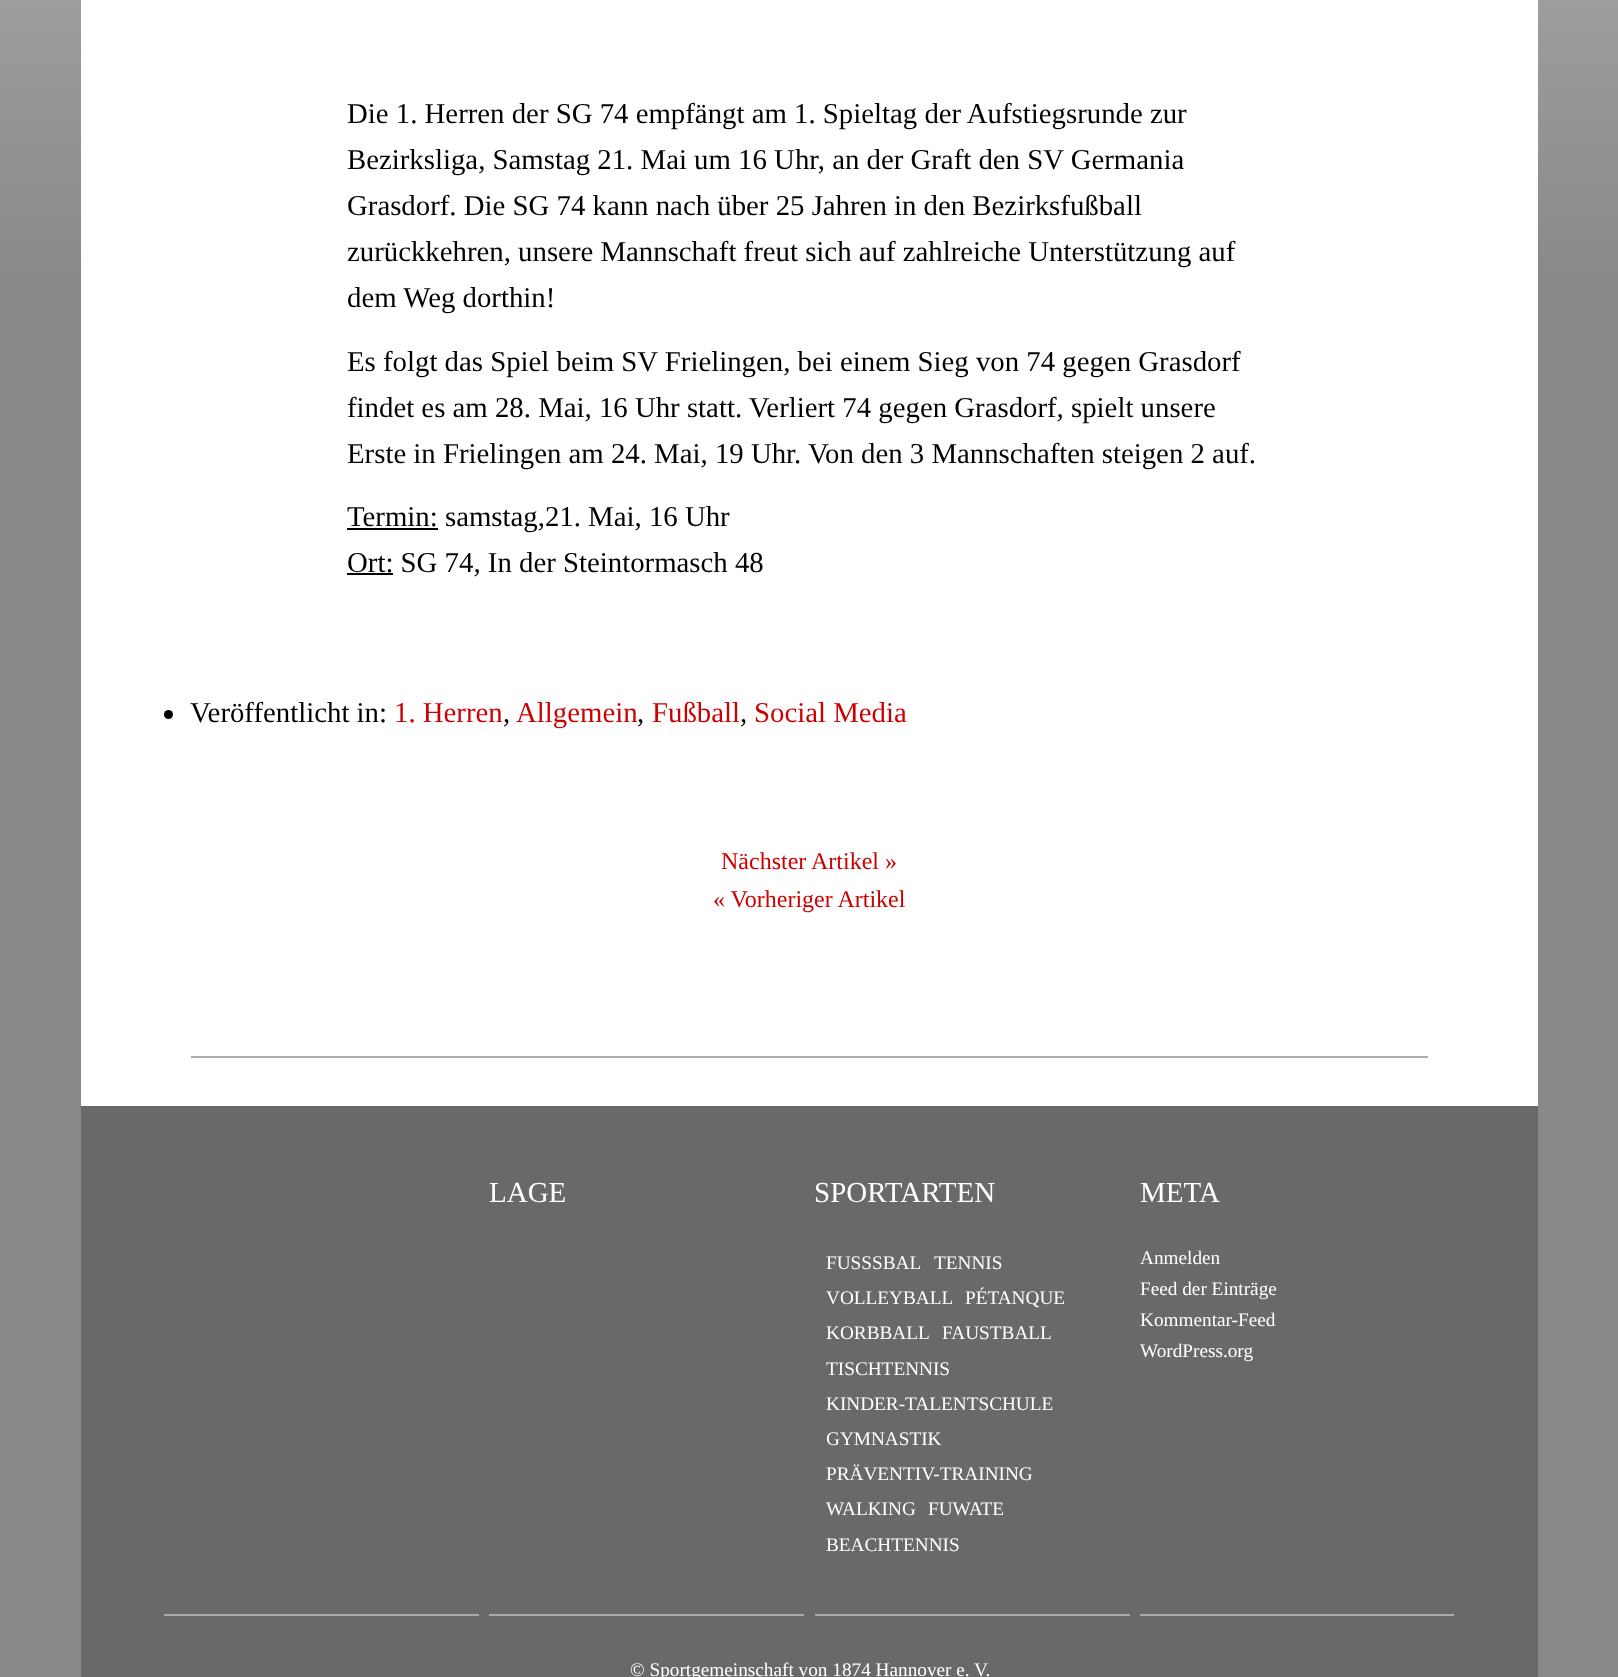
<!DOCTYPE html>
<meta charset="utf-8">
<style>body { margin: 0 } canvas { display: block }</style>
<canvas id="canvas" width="1618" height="1677"></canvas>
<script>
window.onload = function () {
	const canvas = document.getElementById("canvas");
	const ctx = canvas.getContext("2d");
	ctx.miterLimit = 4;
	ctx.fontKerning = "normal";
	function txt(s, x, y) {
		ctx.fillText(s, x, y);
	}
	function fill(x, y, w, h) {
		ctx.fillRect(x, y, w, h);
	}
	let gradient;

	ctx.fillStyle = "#FFFFFF";
	fill(0, 0, 1618, 1677);
	gradient = ctx.createLinearGradient(809, -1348, 809, 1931);
	gradient.addColorStop(0, "#FFFFFF");
	gradient.addColorStop(0.5, "#888888");
	ctx.fillStyle = gradient;
	fill(0, 0, 1618, 1677);
	ctx.fillStyle = "#FFFFFF";
	fill(81, 0, 1457, 1106);
	ctx.fillStyle = "#000000";
	fill(347, 528, 91, 2);
	fill(347, 573, 46, 2);
	ctx.beginPath();
	ctx.arc(168.5, 714.5, 4.5, 0, Math.PI * 2);
	ctx.fill();
	ctx.fillStyle = "#AAAAAA";
	fill(191, 1056, 1237, 2);
	ctx.fillStyle = "#696969";
	fill(81, 1106, 1457, 571);
	ctx.fillStyle = "#AAAAAA";
	fill(489, 1614, 315, 2);
	fill(815, 1614, 315, 2);
	fill(1140, 1614, 314, 2);
	fill(164, 1614, 315, 2);
	ctx.font = "28.8px Liberation Serif";
	ctx.fillStyle = "#000000";
	txt("Die 1. Herren der SG 74 empfängt am 1. Spieltag der Aufstiegsrunde zur", 347, 123);
	txt("Bezirksliga, Samstag 21. Mai um 16 Uhr, an der Graft den SV Germania", 347, 169);
	txt("Grasdorf. Die SG 74 kann nach über 25 Jahren in den Bezirksfußball", 347, 215);
	txt("zurückkehren, unsere Mannschaft freut sich auf zahlreiche Unterstützung auf", 347, 261);
	txt("dem Weg dorthin!", 347, 307);
	txt("Es folgt das Spiel beim SV Frielingen, bei einem Sieg von 74 gegen Grasdorf", 347, 371);
	txt("findet es am 28. Mai, 16 Uhr statt. Verliert 74 gegen Grasdorf, spielt unsere", 347, 417);
	txt("Erste in Frielingen am 24. Mai, 19 Uhr. Von den 3 Mannschaften steigen 2 auf.", 347, 463);
	txt("Termin: samstag,21. Mai, 16 Uhr", 347, 526);
	txt("Ort: SG 74, In der Steintormasch 48", 347, 572);
	txt("Veröffentlicht in:", 190, 722);
	ctx.fillStyle = "#CC0000";
	txt("1. Herren", 394, 722);
	txt("Allgemein", 516, 722);
	txt("Fußball", 652, 722);
	txt("Social Media", 754, 722);
	ctx.fillStyle = "#000000";
	txt(",", 503, 722);
	txt(",", 637, 722);
	txt(",", 740, 722);
	ctx.font = "24px Liberation Serif";
	ctx.fillStyle = "#CC0000";
	txt("Nächster Artikel »", 721, 869);
	txt("« Vorheriger Artikel", 713, 907);
	ctx.font = "29px Liberation Serif";
	ctx.fillStyle = "#FFFFFF";
	txt("LAGE", 489, 1202);
	txt("SPORTARTEN", 814, 1202);
	ctx.font = "19.25px Liberation Serif";
	txt("FUSSSBAL", 826, 1269);
	txt("TENNIS", 934, 1269);
	txt("VOLLEYBALL", 826, 1304);
	txt("PÉTANQUE", 965, 1304);
	txt("KORBBALL", 826, 1339);
	txt("FAUSTBALL", 942, 1339);
	txt("TISCHTENNIS", 826, 1375);
	txt("KINDER-TALENTSCHULE", 826, 1410);
	txt("GYMNASTIK", 826, 1445);
	txt("PRÄVENTIV-TRAINING", 826, 1480);
	txt("WALKING", 826, 1515);
	txt("FUWATE", 928, 1515);
	txt("BEACHTENNIS", 826, 1551);
	ctx.font = "29px Liberation Serif";
	txt("META", 1140, 1202);
	ctx.font = "19.25px Liberation Serif";
	txt("Anmelden", 1140, 1264);
	txt("Feed der Einträge", 1140, 1295);
	txt("Kommentar-Feed", 1140, 1326);
	txt("WordPress.org", 1140, 1357);
	txt("© Sportgemeinschaft von 1874 Hannover e. V.", 630, 1676);
};
</script>
